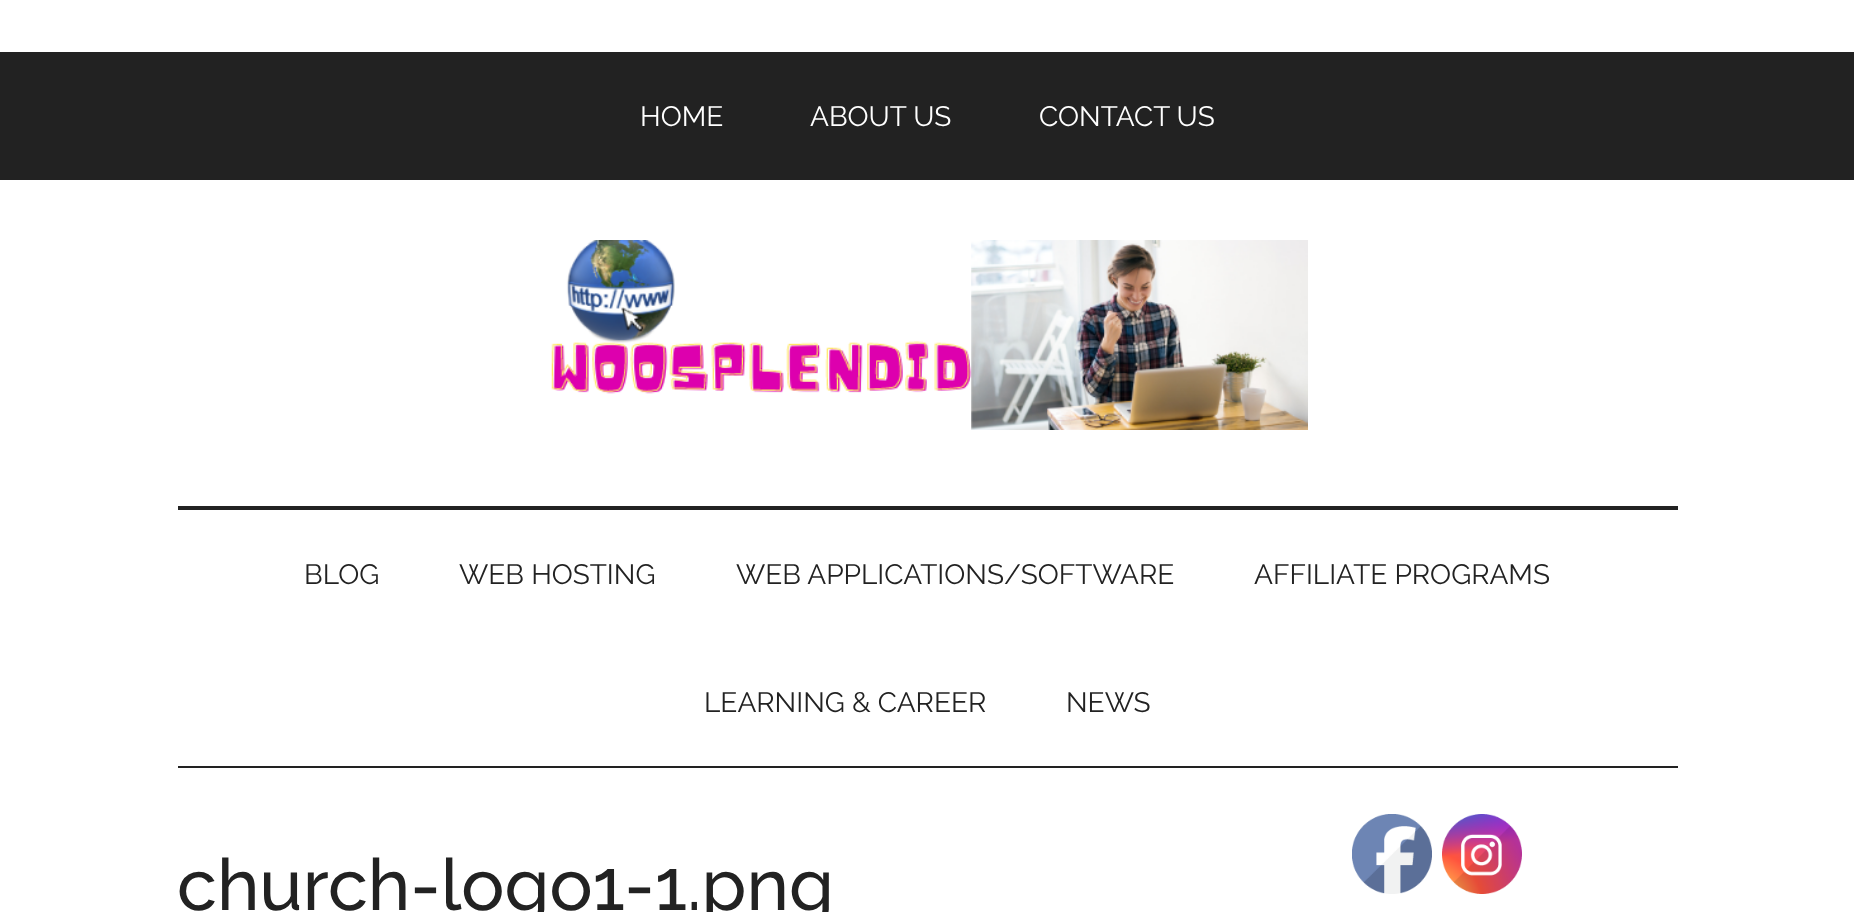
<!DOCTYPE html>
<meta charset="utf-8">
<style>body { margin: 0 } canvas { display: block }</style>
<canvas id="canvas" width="1854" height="912"></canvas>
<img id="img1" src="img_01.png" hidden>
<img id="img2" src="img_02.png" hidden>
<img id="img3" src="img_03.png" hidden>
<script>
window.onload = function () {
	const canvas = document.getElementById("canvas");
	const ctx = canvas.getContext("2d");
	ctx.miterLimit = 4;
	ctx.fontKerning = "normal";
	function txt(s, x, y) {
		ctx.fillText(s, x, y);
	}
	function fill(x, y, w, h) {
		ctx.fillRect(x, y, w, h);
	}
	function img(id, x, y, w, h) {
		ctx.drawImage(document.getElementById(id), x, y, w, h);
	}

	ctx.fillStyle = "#FFFFFF";
	fill(0, 0, 1854, 912);
	ctx.fillStyle = "#222222";
	fill(0, 52, 1854, 128);
	fill(178, 506, 1500, 4);
	img("img1", 551, 240, 757, 190);
	fill(178, 766, 1500, 2);
	img("img2", 1352, 814, 80, 80);
	img("img3", 1442, 814, 80, 80);
	ctx.font = "28px Raleway";
	ctx.fillStyle = "#FFFFFF";
	txt("HOME", 640, 126);
	txt("ABOUT US", 810, 126);
	txt("CONTACT US", 1039, 126);
	ctx.fillStyle = "#222222";
	txt("BLOG", 304, 584);
	txt("WEB HOSTING", 459, 584);
	txt("WEB APPLICATIONS/SOFTWARE", 736, 584);
	txt("AFFILIATE PROGRAMS", 1254, 584);
	txt("LEARNING & CAREER", 704, 712);
	txt("NEWS", 1066, 712);
	ctx.font = "500 72px Raleway";
	txt("church-logo1-1.png", 177, 910);
};
</script>
